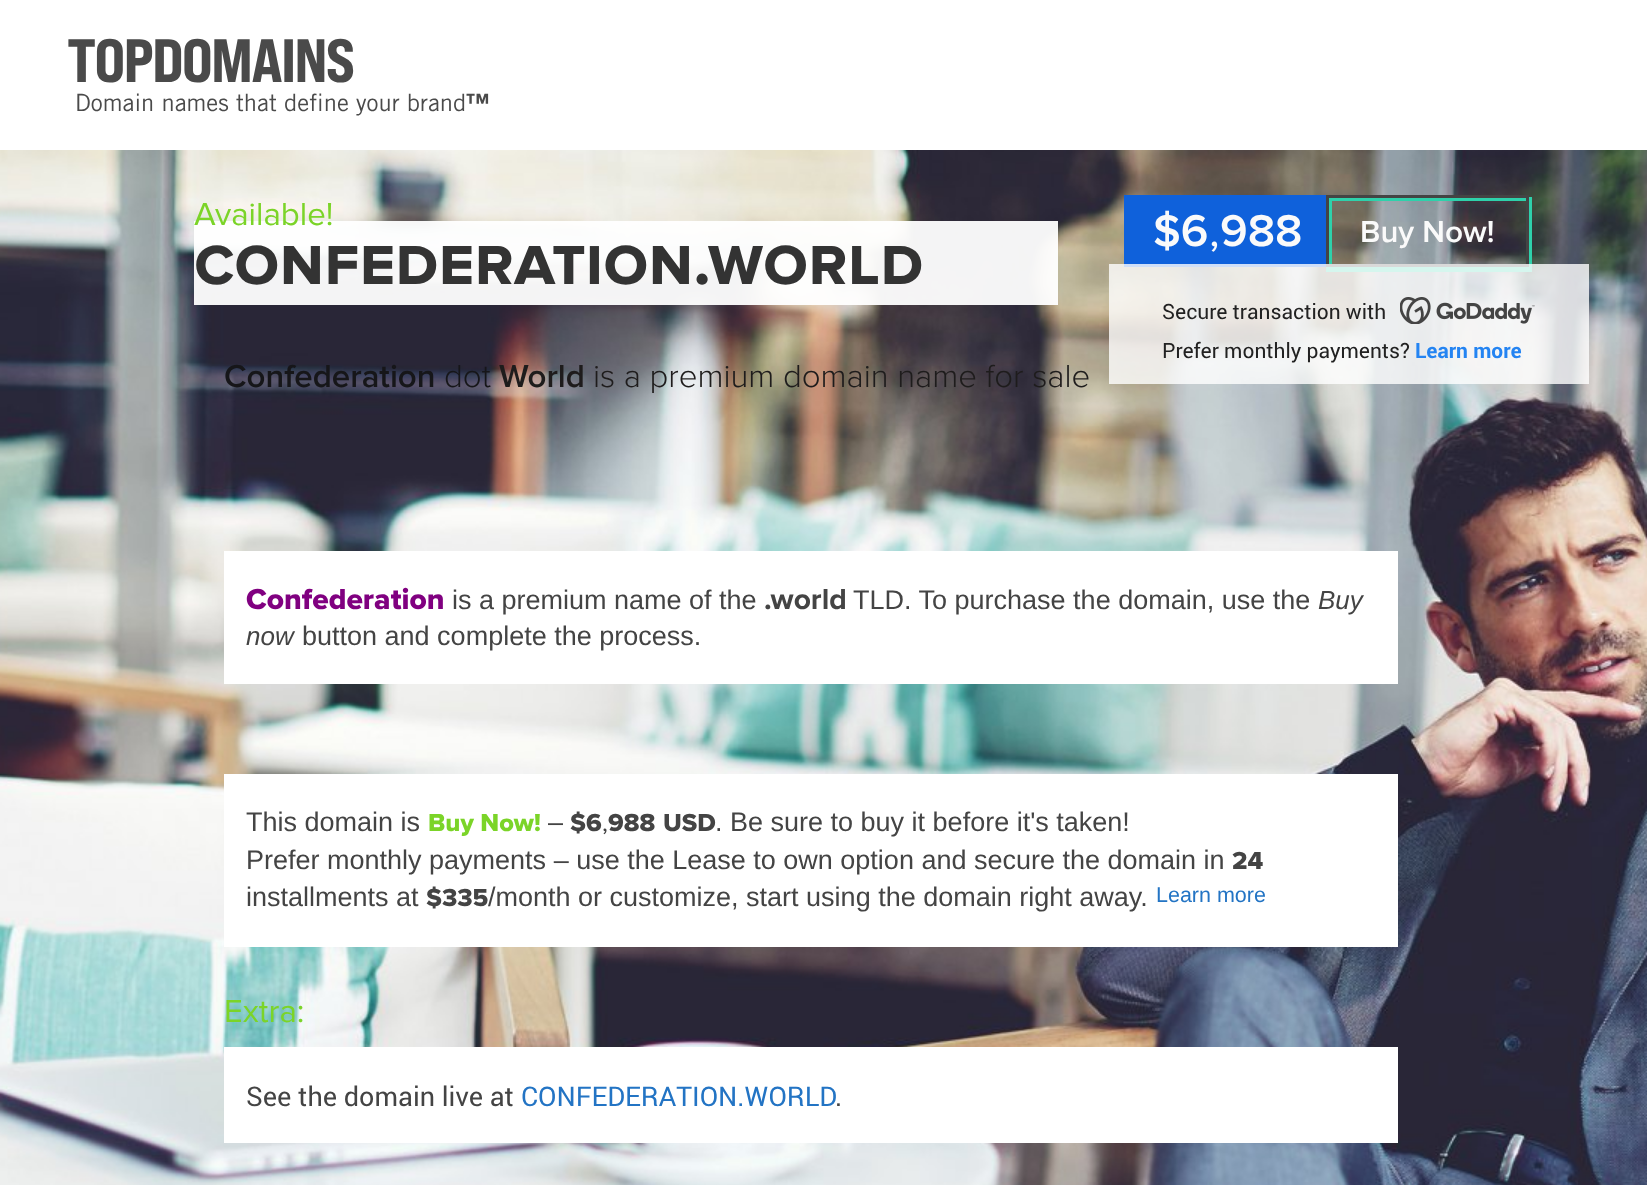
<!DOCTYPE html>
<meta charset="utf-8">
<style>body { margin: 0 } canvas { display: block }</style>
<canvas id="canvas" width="1647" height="1185"></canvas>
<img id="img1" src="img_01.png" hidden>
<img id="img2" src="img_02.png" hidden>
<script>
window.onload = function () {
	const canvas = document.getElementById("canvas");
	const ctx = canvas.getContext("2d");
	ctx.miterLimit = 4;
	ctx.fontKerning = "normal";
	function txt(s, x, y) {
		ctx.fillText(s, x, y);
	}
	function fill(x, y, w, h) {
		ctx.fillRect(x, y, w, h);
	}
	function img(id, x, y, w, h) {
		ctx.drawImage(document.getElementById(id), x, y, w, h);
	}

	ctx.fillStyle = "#FFFFFF";
	fill(0, 0, 1647, 1185);
	img("img1", 0, 150, 1647, 1035);
	ctx.fillStyle = "rgba(255, 255, 255, 0.95)";
	fill(194, 221, 864, 84);
	ctx.fillStyle = "#0F61DB";
	fill(1124, 195, 202, 72);
	ctx.fillStyle = "#2ED1AB";
	ctx.beginPath();
	ctx.moveTo(1326, 267);
	ctx.lineTo(1326, 272);
	ctx.lineTo(1532, 272);
	ctx.lineTo(1532, 197);
	ctx.lineTo(1528, 197);
	ctx.lineTo(1528, 267);
	ctx.closePath();
	ctx.fill();
	ctx.save();
	ctx.beginPath();
	ctx.rect(1329, 198, 197, 66);
	ctx.clip();
	ctx.beginPath();
	ctx.moveTo(1180, 50);
	ctx.lineTo(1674, 50);
	ctx.lineTo(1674, 412);
	ctx.lineTo(1180, 412);
	ctx.closePath();
	ctx.moveTo(1332, 201);
	ctx.lineTo(1526, 201);
	ctx.lineTo(1526, 264);
	ctx.lineTo(1332, 264);
	ctx.closePath();
	ctx.fill("evenodd");
	ctx.restore();
	ctx.strokeStyle = "#444444";
	ctx.lineWidth = 3;
	ctx.strokeRect(1327.5, 196.5, 200, 69);
	ctx.fillStyle = "rgba(255, 255, 255, 0.8)";
	fill(1109, 264, 480, 120);
	img("img2", 1400, 297, 135, 27);
	ctx.fillStyle = "#FFFFFF";
	fill(224, 551, 1174, 133);
	fill(224, 774, 1174, 173);
	fill(224, 1047, 1174, 96);
	ctx.letterSpacing = "-1.9px";
	ctx.font = "800 61px Bebas Neue";
	ctx.fillStyle = "#4A4A4A";
	txt("TOPDOMAINS", 67, 82);
	ctx.letterSpacing = "0px";
	ctx.font = "23.75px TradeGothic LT";
	txt("Domain names that define your brand", 75, 111);
	ctx.font = "bold 23.75px TradeGothic LT";
	txt("™", 466, 111);
	ctx.font = "33px Proxima Nova";
	ctx.fillStyle = "#7BD428";
	txt("Available!", 194, 225);
	ctx.font = "bold 69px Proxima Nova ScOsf";
	ctx.fillStyle = "#333333";
	txt("confederation.", 194, 284);
	txt("world", 708, 284);
	ctx.font = "600 33px Proxima Nova";
	ctx.fillStyle = "#161619";
	txt("Confederation", 224, 387);
	ctx.font = "300 33px Proxima Nova";
	txt("dot", 444, 387);
	ctx.font = "600 33px Proxima Nova";
	ctx.fillStyle = "#1E1C1C";
	txt("World", 499, 387);
	ctx.font = "300 33px Proxima Nova";
	txt("is a premium domain name for sale", 593, 387);
	ctx.font = "600 46px Proxima Nova";
	ctx.fillStyle = "#FAFAFA";
	txt("$6", 1153, 246);
	ctx.font = "46px Proxima Nova";
	txt(",", 1209, 246);
	ctx.font = "600 46px Proxima Nova";
	txt("988", 1220, 246);
	ctx.font = "21px Roboto";
	ctx.fillStyle = "#222222";
	txt("Secure transaction with", 1162, 319);
	txt("Prefer monthly payments?", 1162, 358);
	ctx.font = "bold 21px Roboto";
	ctx.fillStyle = "#2484F2";
	txt("Learn more", 1415, 358);
	ctx.font = "600 31.5px Proxima Nova";
	ctx.fillStyle = "#FAFAFA";
	txt("Buy Now!", 1360, 242);
	ctx.font = "800 30px Proxima Nova";
	ctx.fillStyle = "#800080";
	txt("Confederation", 246, 609);
	ctx.font = "27px Liberation Sans";
	ctx.fillStyle = "#444444";
	txt("is a premium name of the", 452, 609);
	ctx.font = "bold 30px Proxima Nova";
	txt(".world", 764, 609);
	ctx.font = "27px Liberation Sans";
	txt("TLD. To purchase the domain, use the", 853, 609);
	ctx.font = "italic 26px Liberation Sans";
	txt("Buy", 1318, 609);
	txt("now", 246, 645);
	ctx.font = "27px Liberation Sans";
	txt("button and complete the process.", 302, 645);
	txt("This domain is", 246, 831);
	ctx.font = "800 25.5px Proxima Nova";
	ctx.fillStyle = "#7BD428";
	txt("Buy Now!", 428, 831);
	ctx.font = "27px Liberation Sans";
	ctx.fillStyle = "#444444";
	txt("–", 548, 831);
	ctx.font = "800 25.5px Proxima Nova";
	txt("$6", 570, 831);
	txt("988", 608, 831);
	txt("USD", 663, 831);
	ctx.font = "27px Liberation Sans";
	txt(". Be sure to buy it before it's taken!", 715, 831);
	ctx.font = "25.5px Proxima Nova";
	txt(",", 602, 831);
	ctx.font = "27px Liberation Sans";
	txt("Prefer monthly payments – use the Lease to own option and secure the domain in", 246, 869);
	ctx.font = "800 25.5px Proxima Nova";
	txt("24", 1232, 869);
	ctx.font = "27px Liberation Sans";
	txt("installments at", 246, 906);
	ctx.font = "800 25.5px Proxima Nova";
	txt("$335", 426, 906);
	ctx.font = "27px Liberation Sans";
	txt("/month or customize, start using the domain right away.", 488, 906);
	ctx.font = "21.5px Liberation Sans";
	ctx.fillStyle = "#2374C4";
	txt("Learn more", 1156, 902);
	ctx.font = "33px Proxima Nova";
	ctx.fillStyle = "#7BD428";
	txt("Extra:", 224, 1022);
	ctx.font = "27px Roboto";
	ctx.fillStyle = "#444444";
	txt("See the domain live at", 246, 1106);
	ctx.fillStyle = "#2374C4";
	txt("CONFEDERATION.WORLD", 521, 1106);
	ctx.fillStyle = "#444444";
	txt(".", 835, 1106);
};
</script>
